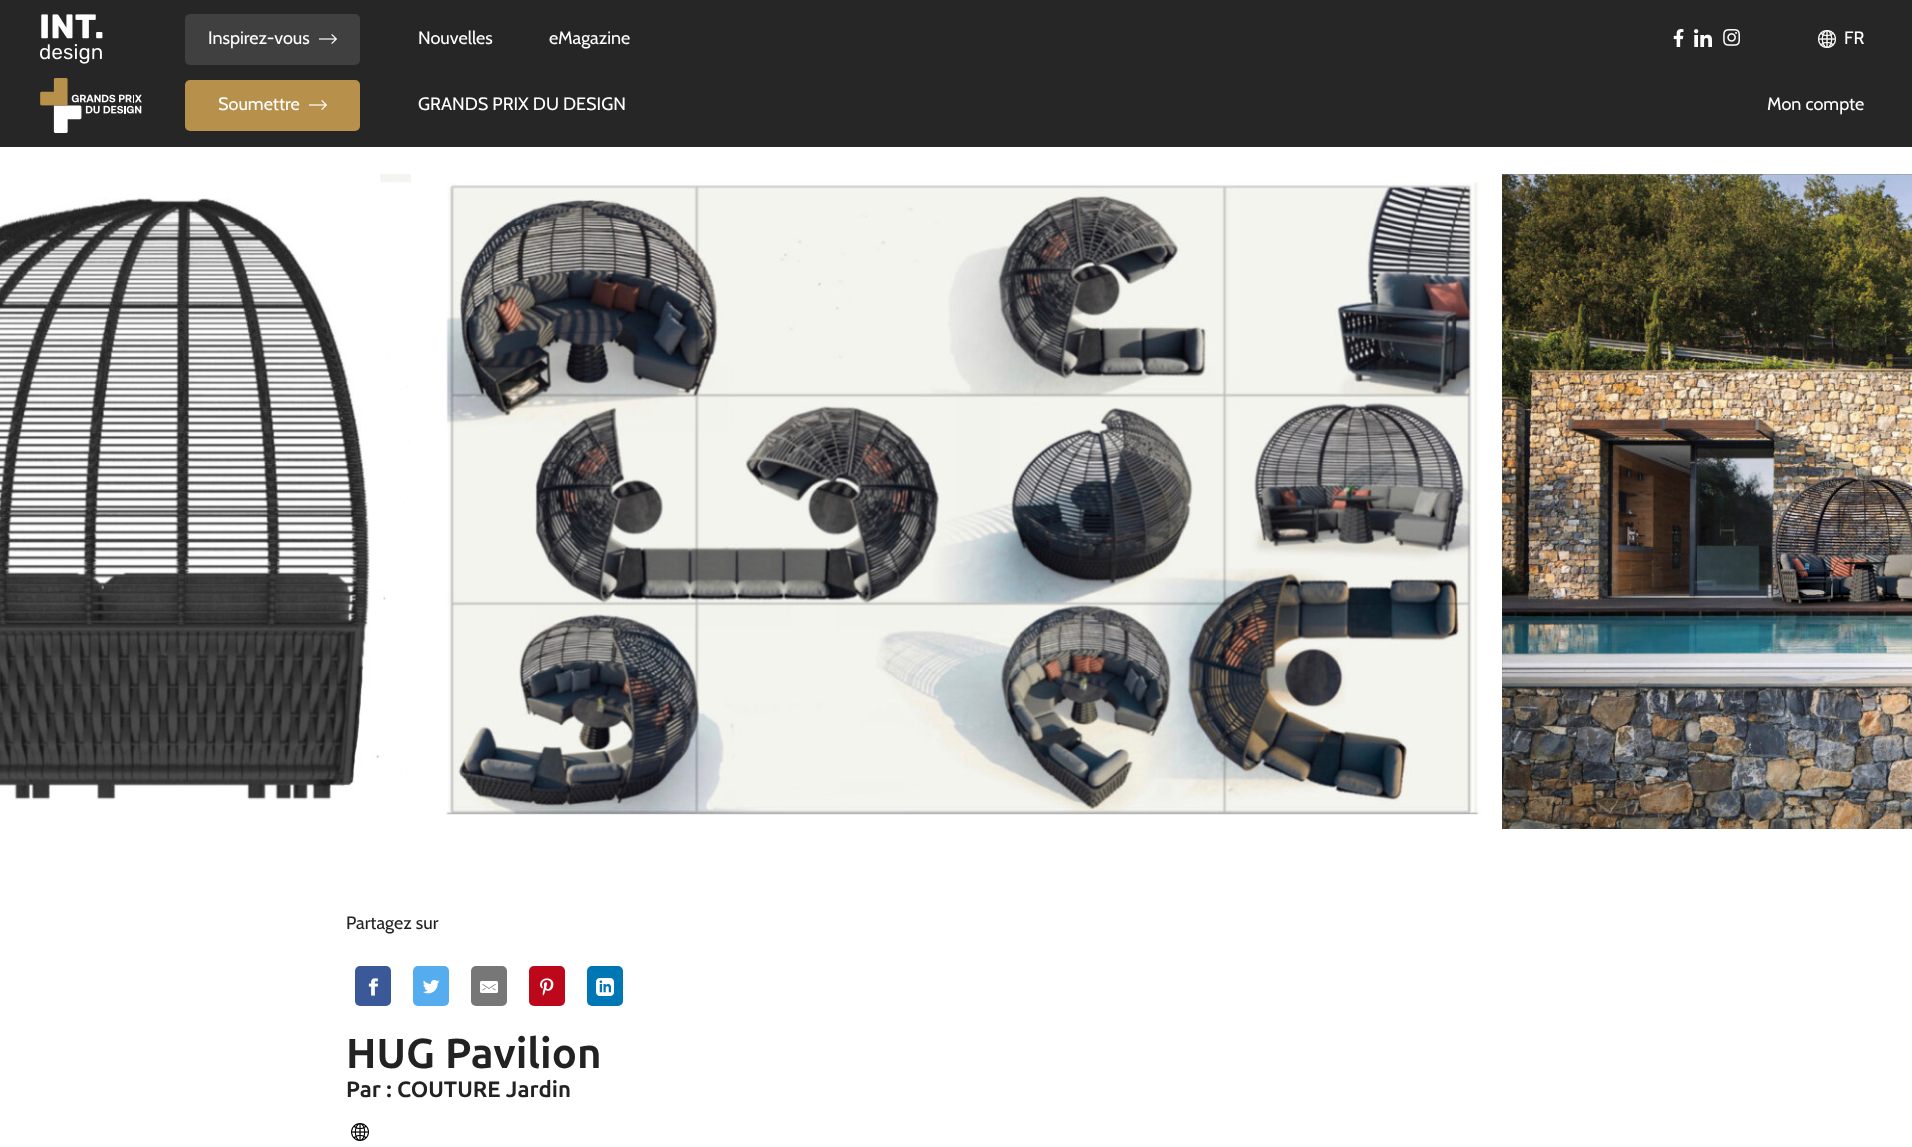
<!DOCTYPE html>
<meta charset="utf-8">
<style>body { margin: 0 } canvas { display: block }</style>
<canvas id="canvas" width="1912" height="1147"></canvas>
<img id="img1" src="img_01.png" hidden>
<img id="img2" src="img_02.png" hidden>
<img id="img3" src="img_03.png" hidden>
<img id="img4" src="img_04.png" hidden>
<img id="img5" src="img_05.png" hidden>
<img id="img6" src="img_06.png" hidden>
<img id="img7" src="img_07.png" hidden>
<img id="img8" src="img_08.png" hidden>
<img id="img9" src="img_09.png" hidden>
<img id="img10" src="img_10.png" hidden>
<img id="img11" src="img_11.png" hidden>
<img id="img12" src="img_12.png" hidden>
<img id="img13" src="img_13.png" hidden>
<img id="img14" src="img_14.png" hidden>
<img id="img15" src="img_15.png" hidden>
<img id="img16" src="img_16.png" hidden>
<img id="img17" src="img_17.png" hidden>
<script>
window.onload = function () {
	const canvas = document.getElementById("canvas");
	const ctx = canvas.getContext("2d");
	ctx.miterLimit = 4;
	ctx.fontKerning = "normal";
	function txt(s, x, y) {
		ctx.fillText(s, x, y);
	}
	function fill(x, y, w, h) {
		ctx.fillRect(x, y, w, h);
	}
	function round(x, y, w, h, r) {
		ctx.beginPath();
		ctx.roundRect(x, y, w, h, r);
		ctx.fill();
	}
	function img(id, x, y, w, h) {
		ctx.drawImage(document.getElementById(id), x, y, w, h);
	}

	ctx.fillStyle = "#FFFFFF";
	fill(0, 0, 1912, 1147);
	ctx.fillStyle = "#262626";
	fill(0, 0, 1912, 147);
	img("img1", 40, 14, 63, 50);
	ctx.fillStyle = "#404040";
	round(185, 14, 175, 51, 5);
	img("img2", 319, 34, 18, 10);
	img("img3", 1673, 29, 11, 18);
	img("img4", 1694, 29, 18, 18);
	img("img5", 1723, 29, 17, 17);
	img("img6", 1818, 30, 18, 18);
	img("img7", 40, 78, 102, 55);
	ctx.fillStyle = "#B7904C";
	round(185, 80, 175, 51, 5);
	img("img8", 309, 100, 18, 10);
	img("img9", 0, 174, 411, 626);
	img("img10", 446, 182, 1035, 633);
	img("img11", 1502, 174, 410, 655);
	ctx.fillStyle = "#3B5998";
	round(355, 966, 36, 40, 5);
	img("img12", 368, 978, 11, 18);
	ctx.fillStyle = "#55ACEE";
	round(413, 966, 36, 40, 5);
	img("img13", 423, 979, 17, 15);
	ctx.fillStyle = "#777777";
	round(471, 966, 36, 40, 5);
	img("img14", 480, 981, 18, 12);
	ctx.fillStyle = "#BD081C";
	round(529, 966, 36, 40, 5);
	img("img15", 540, 978, 14, 18);
	ctx.fillStyle = "#0077B5";
	round(587, 966, 36, 40, 5);
	img("img16", 596, 978, 18, 18);
	img("img17", 351, 1123, 18, 18);
	ctx.font = "18px Cabin";
	ctx.fillStyle = "#FFFFFF";
	txt("Inspirez-vous", 208, 44);
	txt("Nouvelles", 418, 44);
	txt("eMagazine", 549, 44);
	txt("FR", 1844, 44);
	txt("Soumettre", 218, 110);
	txt("GRANDS PRIX DU DESIGN", 418, 110);
	txt("Mon compte", 1767, 110);
	ctx.fillStyle = "#222222";
	txt("Partagez sur", 346, 929);
	ctx.font = "bold 42px Ubuntu";
	txt("HUG Pavilion", 346, 1068);
	ctx.font = "bold 22.25px Ubuntu";
	txt("Par : COUTURE Jardin", 346, 1097);
};
</script>
